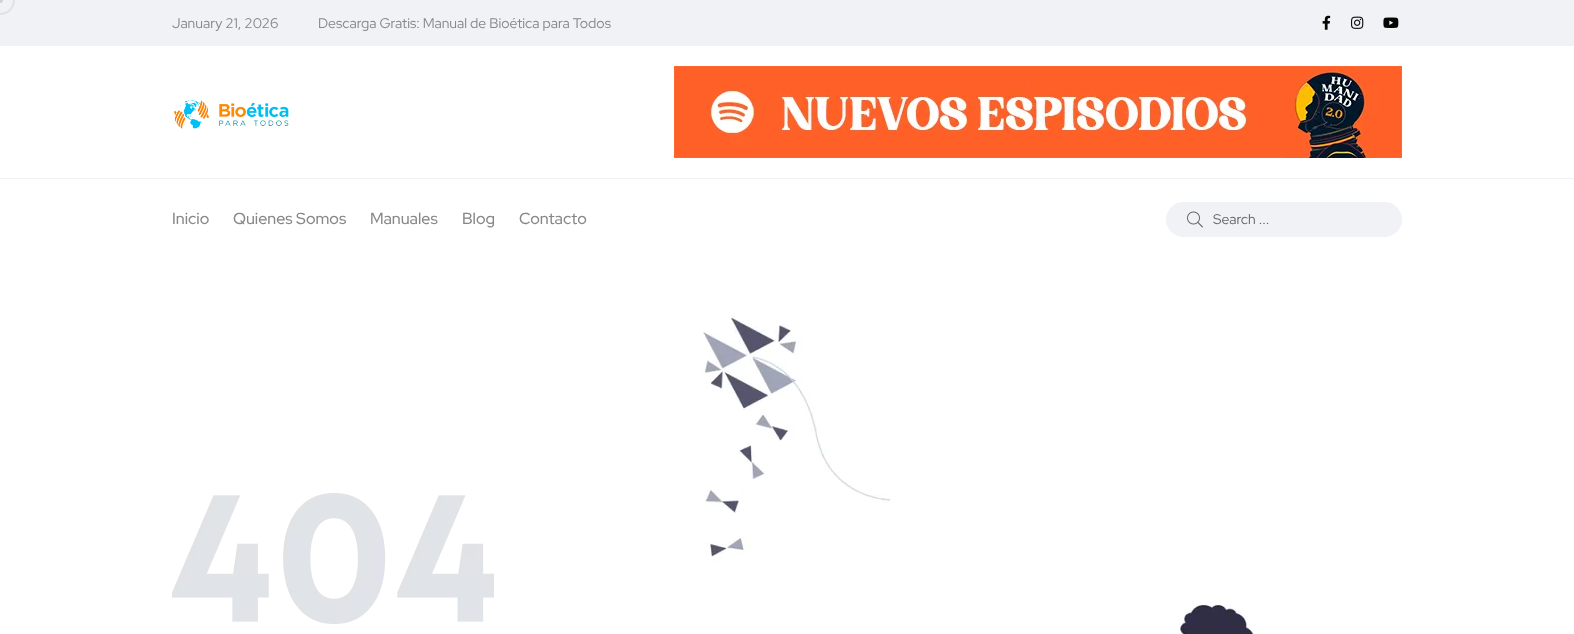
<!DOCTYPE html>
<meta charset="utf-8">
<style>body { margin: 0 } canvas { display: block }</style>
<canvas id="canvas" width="1574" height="634"></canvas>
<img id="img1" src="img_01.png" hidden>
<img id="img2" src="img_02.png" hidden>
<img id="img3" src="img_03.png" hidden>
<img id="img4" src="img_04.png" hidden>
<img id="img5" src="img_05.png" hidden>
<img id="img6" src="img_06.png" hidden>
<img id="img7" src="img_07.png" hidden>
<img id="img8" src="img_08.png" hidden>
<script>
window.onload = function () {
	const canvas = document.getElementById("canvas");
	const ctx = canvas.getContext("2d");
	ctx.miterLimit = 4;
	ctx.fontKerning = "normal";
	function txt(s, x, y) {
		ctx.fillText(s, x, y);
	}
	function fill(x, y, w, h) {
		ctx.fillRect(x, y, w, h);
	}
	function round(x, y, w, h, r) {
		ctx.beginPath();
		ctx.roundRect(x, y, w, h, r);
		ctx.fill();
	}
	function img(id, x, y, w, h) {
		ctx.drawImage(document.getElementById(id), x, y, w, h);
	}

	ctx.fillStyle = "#FFFFFF";
	fill(0, 0, 1574, 634);
	ctx.fillStyle = "#F0F2F5";
	fill(0, 0, 1574, 46);
	ctx.beginPath();
	ctx.arc(0, 0, 14, 0, Math.PI * 2);
	ctx.strokeStyle = "#DFE1E5";
	ctx.lineWidth = 2;
	ctx.stroke();
	ctx.fillStyle = "#CED0D4";
	ctx.beginPath();
	ctx.arc(0, 0, 3, 0, Math.PI * 2);
	ctx.fill();
	img("img1", 1322, 15, 9, 15);
	img("img2", 1351, 16, 13, 13);
	img("img3", 1383, 17, 16, 11);
	img("img4", 173, 100, 116, 29);
	img("img5", 674, 66, 728, 92);
	ctx.fillStyle = "#F0F2F5";
	fill(0, 178, 1574, 1);
	round(1166, 202, 236, 35, 17.5);
	img("img6", 1187, 211, 16, 17);
	img("img7", 0, 259, 1574, 375);
	img("img8", 172, 493, 322, 131);
	ctx.font = "14px Red Hat Display";
	ctx.fillStyle = "#878787";
	txt("January 21, 2026", 172, 28);
	txt("Descarga Gratis: Manual de Bioética para Todos", 318, 28);
	ctx.font = "500 16px Red Hat Display";
	txt("Inicio", 172, 224);
	txt("Quienes Somos", 233, 224);
	txt("Manuales", 370, 224);
	txt("Blog", 462, 224);
	txt("Contacto", 519, 224);
	ctx.font = "14px Red Hat Display";
	ctx.fillStyle = "#65676B";
	txt("Search ...", 1213, 224);
};
</script>
